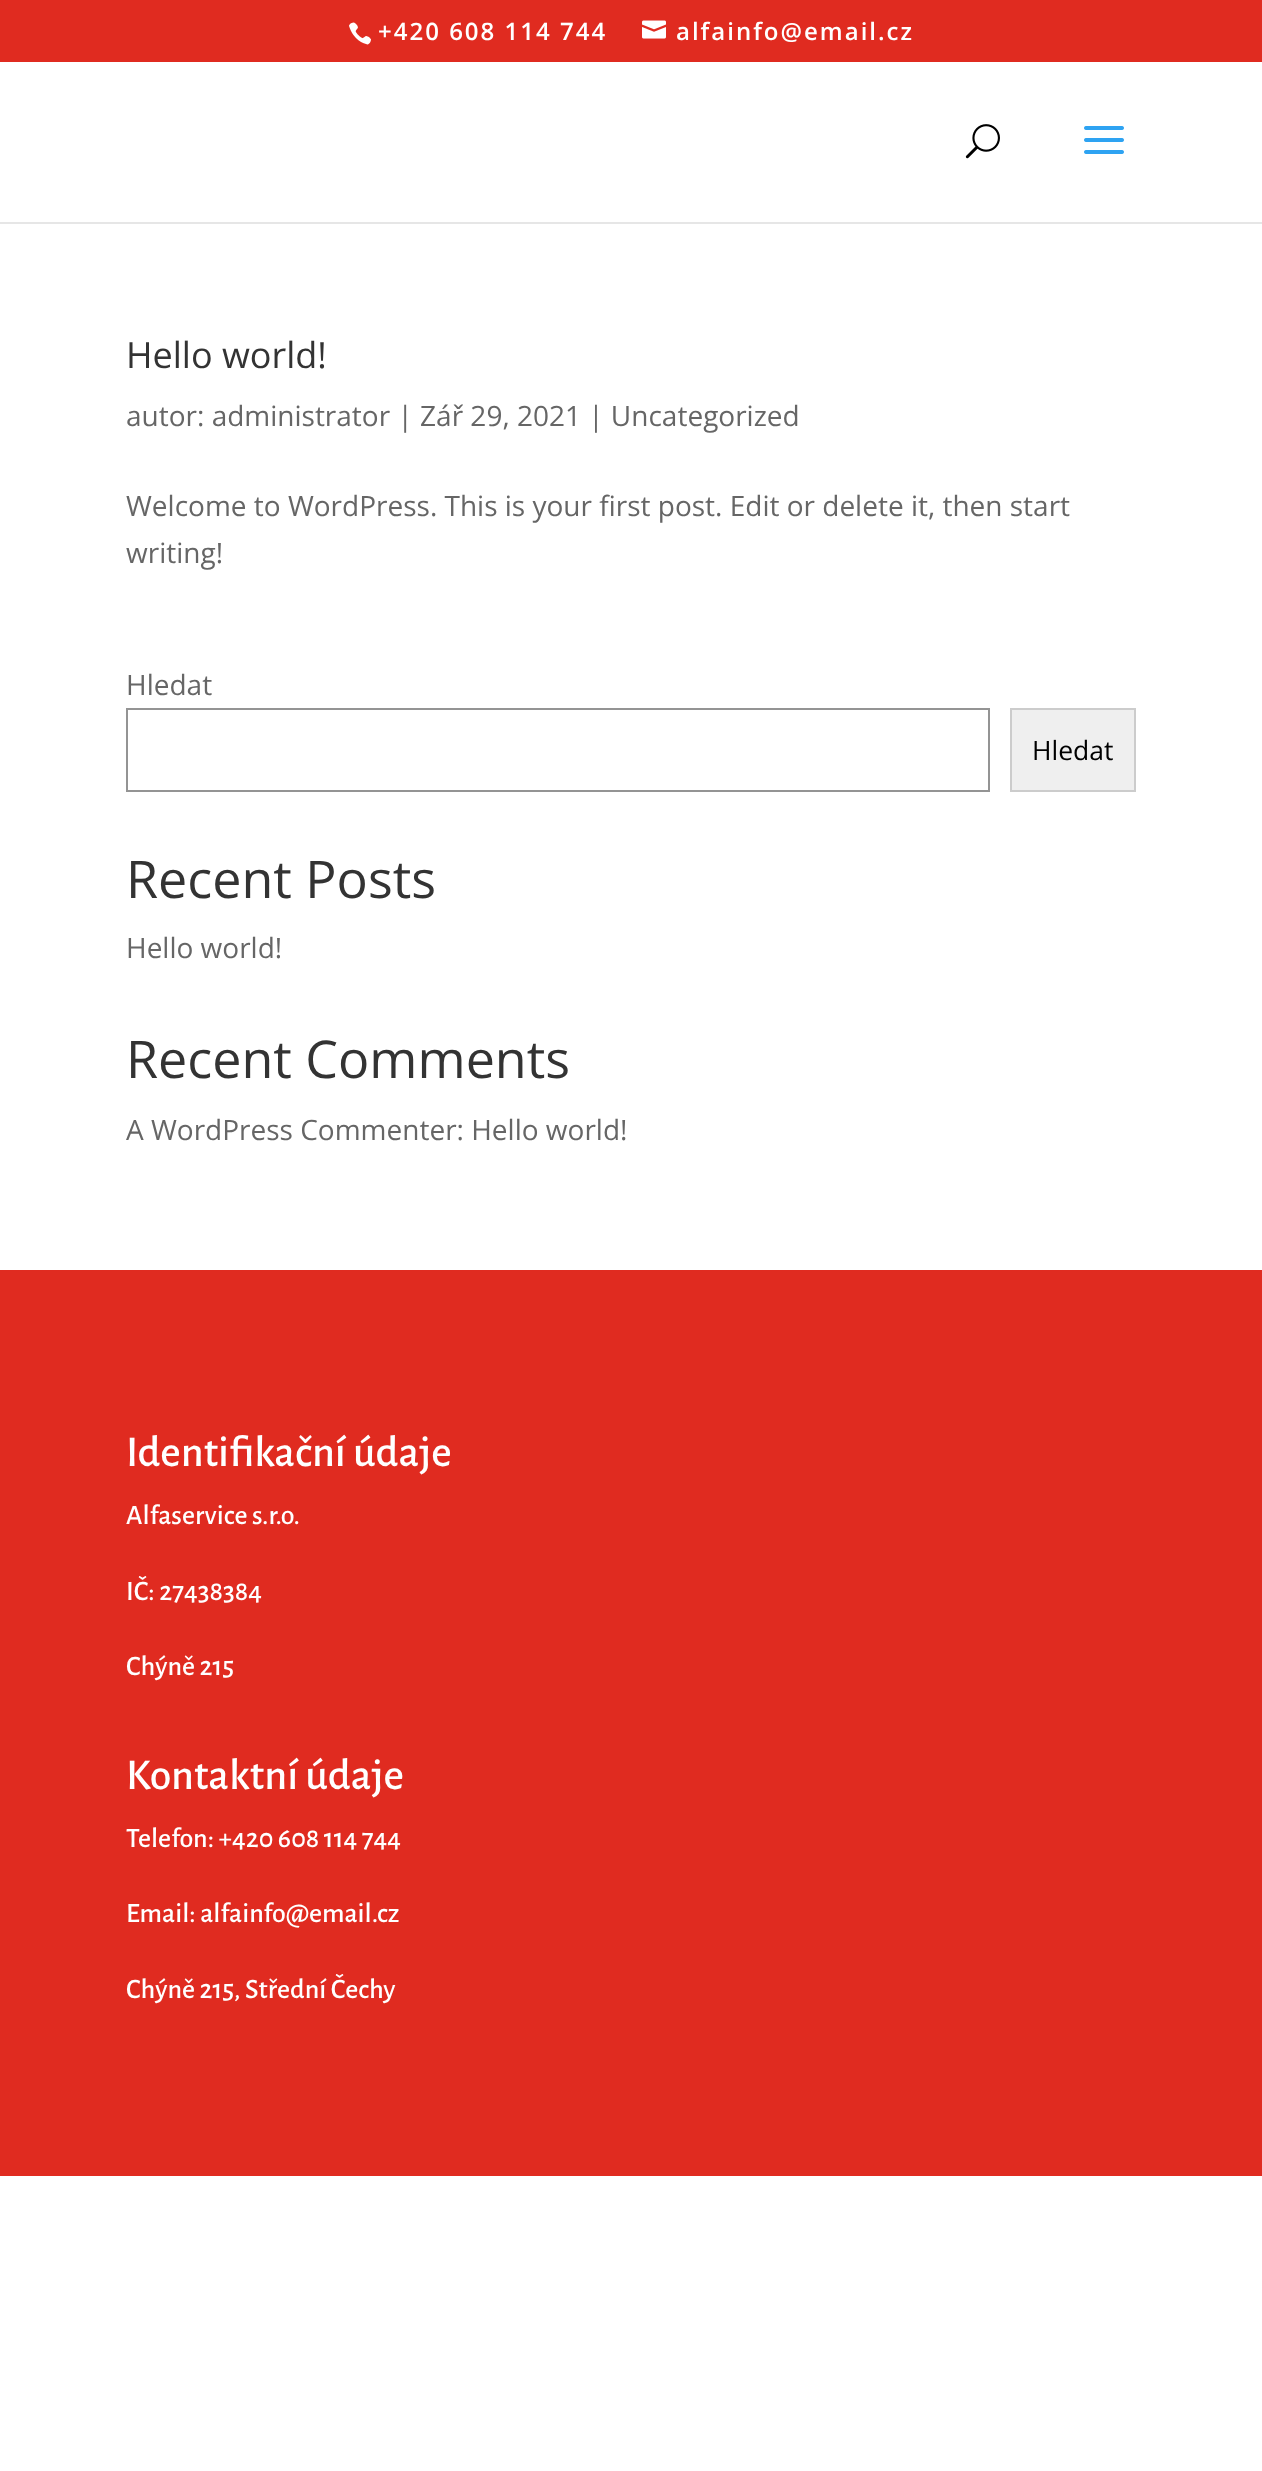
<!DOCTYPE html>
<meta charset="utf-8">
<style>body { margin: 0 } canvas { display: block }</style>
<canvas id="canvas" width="1262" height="2471"></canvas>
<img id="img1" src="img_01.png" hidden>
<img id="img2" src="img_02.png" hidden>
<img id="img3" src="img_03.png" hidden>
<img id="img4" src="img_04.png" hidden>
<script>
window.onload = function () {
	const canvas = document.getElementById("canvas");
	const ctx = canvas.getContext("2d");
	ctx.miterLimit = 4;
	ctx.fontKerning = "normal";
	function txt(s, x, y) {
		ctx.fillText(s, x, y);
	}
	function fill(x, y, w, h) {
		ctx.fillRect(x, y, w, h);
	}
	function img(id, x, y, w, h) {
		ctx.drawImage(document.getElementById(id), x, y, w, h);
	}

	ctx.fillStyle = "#FFFFFF";
	fill(0, 0, 1262, 2471);
	ctx.fillStyle = "#E02B20";
	fill(0, 0, 1262, 62);
	img("img1", 349, 22, 22, 23);
	img("img2", 642, 20, 24, 19);
	ctx.fillStyle = "#E6E6E6";
	fill(0, 222, 1262, 2);
	img("img3", 965, 124, 35, 35);
	img("img4", 1084, 126, 40, 28);
	ctx.strokeStyle = "#949494";
	ctx.lineWidth = 2;
	ctx.strokeRect(127, 709, 862, 82);
	ctx.fillStyle = "#EFEFEF";
	ctx.beginPath();
	ctx.rect(1011, 709, 124, 82);
	ctx.fill();
	ctx.strokeStyle = "#CCCCCC";
	ctx.stroke();
	ctx.fillStyle = "#E02B20";
	fill(0, 1270, 1262, 906);
	ctx.letterSpacing = "2px";
	ctx.font = "600 24px Open Sans";
	ctx.fillStyle = "#FFFFFF";
	txt("+420 608 114 744", 378, 40);
	txt("alfainfo@email.cz", 676, 40);
	ctx.letterSpacing = "0px";
	ctx.font = "36px Open Sans";
	ctx.fillStyle = "#333333";
	txt("Hello world!", 126, 368);
	ctx.font = "28px Open Sans";
	ctx.fillStyle = "#666666";
	txt("autor: administrator | Zář 29, 2021 | Uncategorized", 126, 426);
	txt("Welcome to WordPress. This is your first post. Edit or delete it, then start", 126, 516);
	txt("writing!", 126, 563);
	txt("Hledat", 126, 695);
	ctx.font = "26.5px Open Sans";
	ctx.fillStyle = "#000000";
	txt("Hledat", 1032, 760);
	ctx.font = "52px Open Sans";
	ctx.fillStyle = "#333333";
	txt("Recent Posts", 126, 898);
	ctx.font = "28px Open Sans";
	ctx.fillStyle = "#666666";
	txt("Hello world!", 126, 958);
	ctx.font = "52px Open Sans";
	ctx.fillStyle = "#333333";
	txt("Recent Comments", 126, 1078);
	ctx.font = "28px Open Sans";
	ctx.fillStyle = "#666666";
	txt("A WordPress Commenter: Hello world!", 126, 1140);
	ctx.font = "500 44px Alegreya Sans";
	ctx.fillStyle = "#FFFFFF";
	txt("Identifikační údaje", 126, 1466);
	ctx.font = "500 28px Alegreya Sans";
	txt("Alfaservice s.r.o.", 126, 1524);
	txt("IČ: 27438384", 126, 1600);
	txt("Chýně 215", 126, 1675);
	ctx.font = "500 44px Alegreya Sans";
	txt("Kontaktní údaje", 126, 1789);
	ctx.font = "500 28px Alegreya Sans";
	txt("Telefon: +420 608 114 744", 126, 1847);
	txt("Email: alfainfo@email.cz", 126, 1922);
	txt("Chýně 215, Střední Čechy", 126, 1998);
};
</script>
